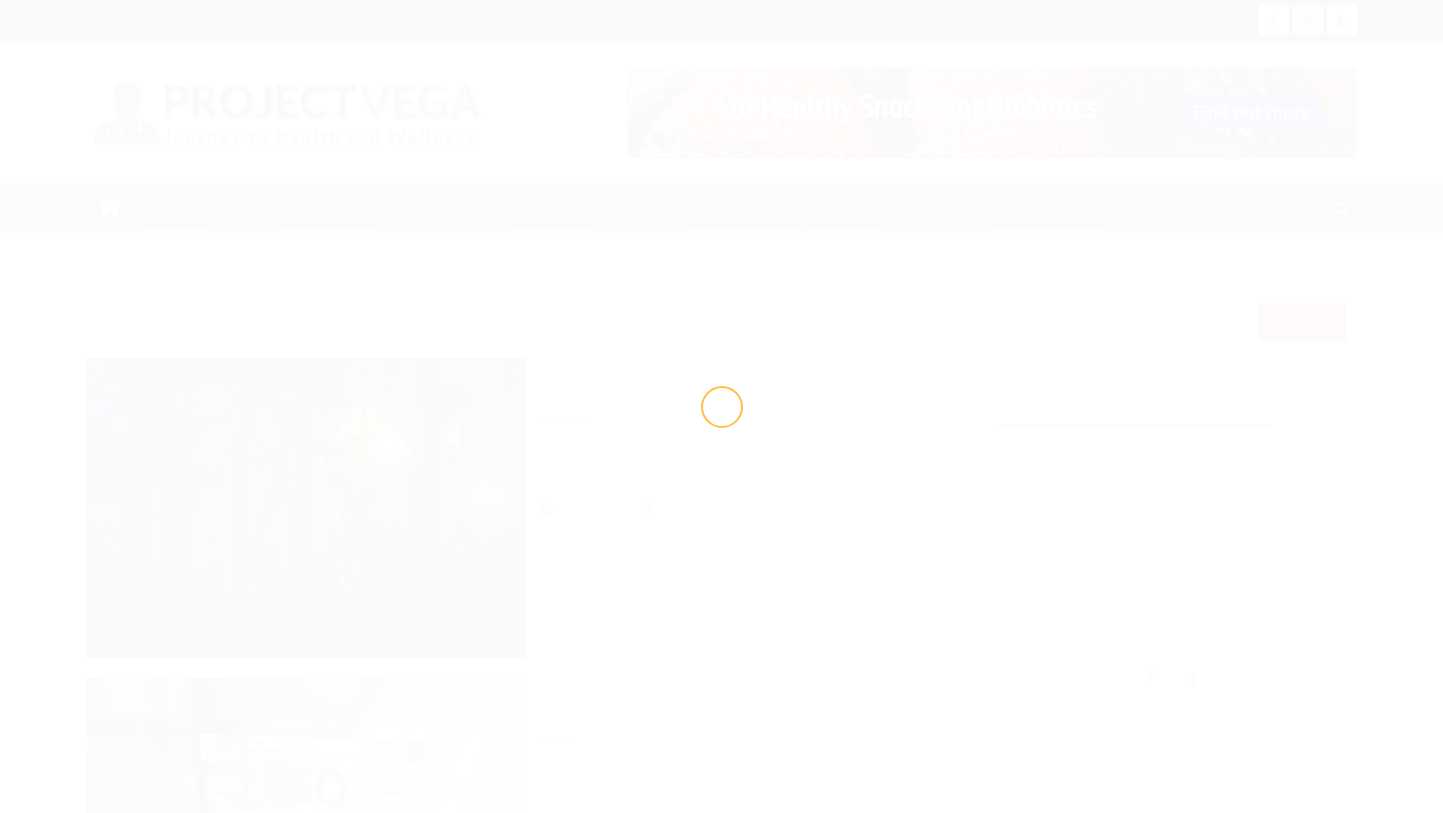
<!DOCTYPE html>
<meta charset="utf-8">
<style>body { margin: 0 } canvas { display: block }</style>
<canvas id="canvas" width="1443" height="813"></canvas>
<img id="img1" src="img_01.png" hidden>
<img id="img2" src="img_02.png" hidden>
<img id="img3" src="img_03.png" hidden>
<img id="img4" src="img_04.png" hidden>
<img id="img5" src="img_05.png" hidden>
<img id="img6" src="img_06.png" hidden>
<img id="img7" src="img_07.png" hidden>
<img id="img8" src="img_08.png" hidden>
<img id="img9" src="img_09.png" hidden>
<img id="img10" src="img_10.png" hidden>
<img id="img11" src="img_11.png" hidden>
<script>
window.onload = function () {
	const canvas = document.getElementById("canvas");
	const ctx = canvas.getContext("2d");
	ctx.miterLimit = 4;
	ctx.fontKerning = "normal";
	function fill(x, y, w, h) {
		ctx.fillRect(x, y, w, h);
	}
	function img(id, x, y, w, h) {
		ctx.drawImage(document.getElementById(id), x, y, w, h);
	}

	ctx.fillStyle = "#FFFFFF";
	fill(0, 0, 1443, 813);
	ctx.fillStyle = "#FAFAFA";
	fill(0, 0, 1443, 43);
	ctx.fillStyle = "#FFFFFF";
	fill(1259, 5, 30, 30);
	img("img1", 1269, 14, 8, 13);
	fill(1293, 5, 30, 30);
	img("img2", 1301, 15, 14, 12);
	fill(1327, 5, 30, 30);
	img("img3", 1337, 14, 8, 13);
	img("img4", 94, 81, 389, 68);
	img("img5", 628, 68, 728, 90);
	ctx.fillStyle = "#FDFAFA";
	fill(0, 183, 1443, 50);
	img("img6", 99, 198, 22, 18);
	ctx.fillStyle = "#FBFDFF";
	fill(143, 229, 66, 3);
	ctx.fillStyle = "#FBFDFC";
	fill(213, 229, 63, 3);
	ctx.fillStyle = "#FFFEFB";
	fill(280, 229, 96, 3);
	ctx.fillStyle = "#FAFEFE";
	fill(512, 229, 80, 3);
	ctx.fillStyle = "#FDFBFD";
	fill(596, 229, 81, 3);
	ctx.fillStyle = "#FDFEFB";
	fill(681, 229, 121, 3);
	ctx.fillStyle = "#FBFDFF";
	fill(806, 229, 80, 3);
	ctx.fillStyle = "#FBFDFC";
	fill(889, 229, 96, 3);
	ctx.fillStyle = "#FFFEFB";
	fill(989, 229, 114, 3);
	img("img7", 1335, 202, 13, 13);
	img("img8", 87, 358, 439, 300);
	fill(541, 419, 49, 1);
	img("img9", 541, 502, 12, 13);
	img("img10", 641, 503, 12, 11);
	img("img11", 87, 678, 439, 135);
	fill(541, 739, 34, 1);
	ctx.fillStyle = "#FEFAFA";
	fill(1259, 303, 88, 38);
	fill(996, 425, 276, 2);
	img("img1", 1147, 671, 8, 13);
	img("img2", 1184, 673, 14, 12);
	ctx.beginPath();
	ctx.arc(722, 407, 20, 0, Math.PI * 2);
	ctx.strokeStyle = "#FFC042";
	ctx.lineWidth = 2;
	ctx.stroke();
};
</script>
